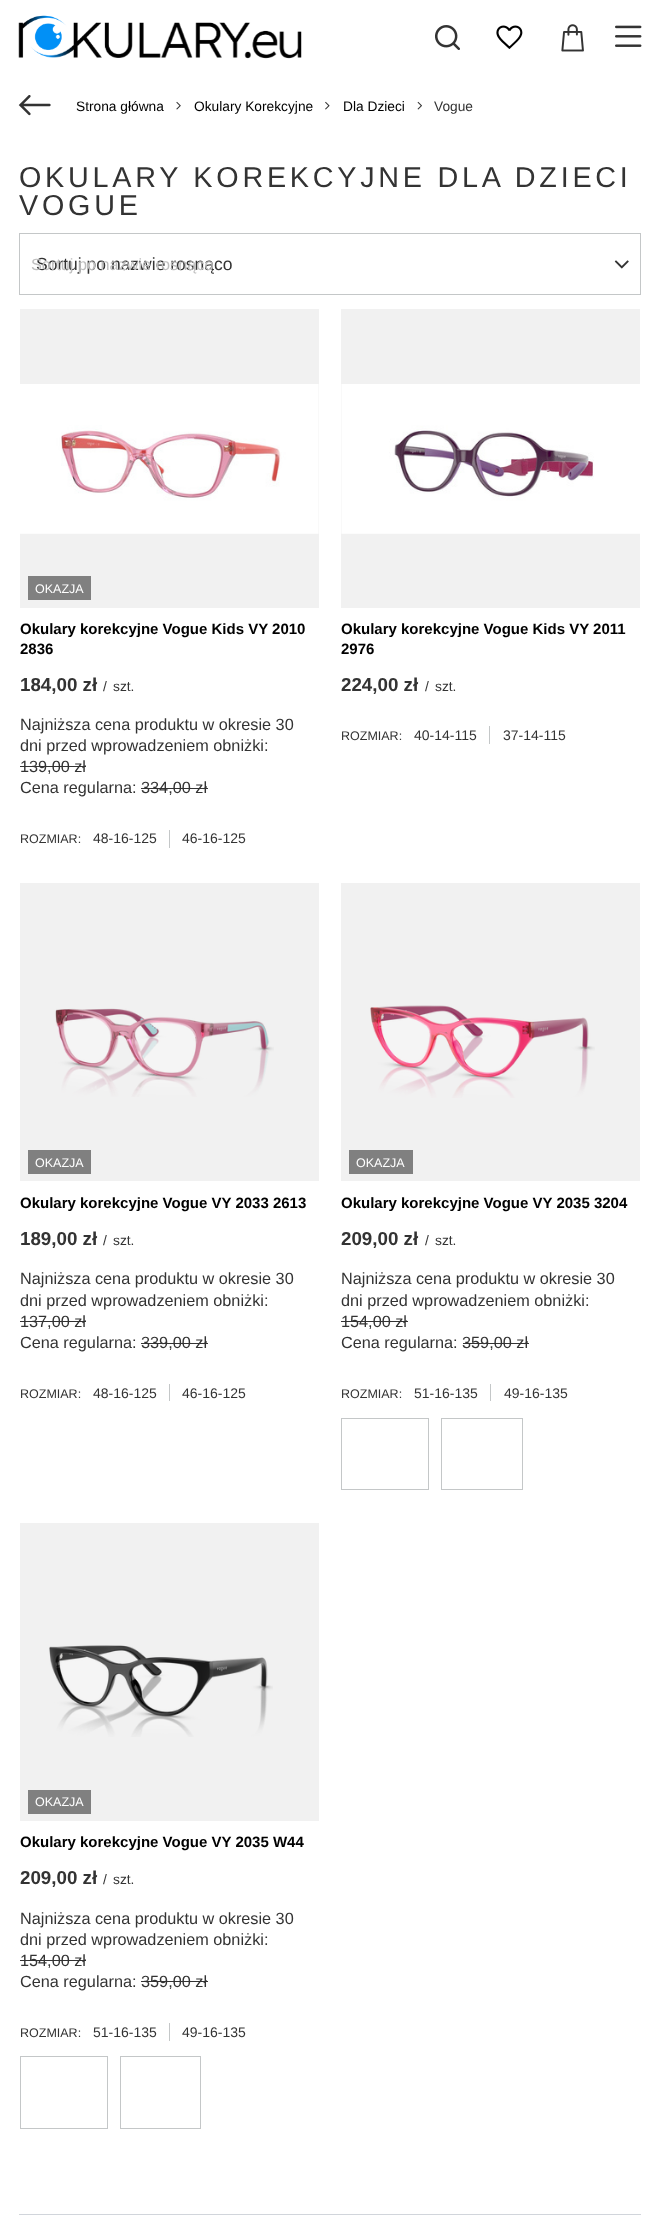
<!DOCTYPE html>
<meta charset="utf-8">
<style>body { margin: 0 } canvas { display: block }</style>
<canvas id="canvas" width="660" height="2223"></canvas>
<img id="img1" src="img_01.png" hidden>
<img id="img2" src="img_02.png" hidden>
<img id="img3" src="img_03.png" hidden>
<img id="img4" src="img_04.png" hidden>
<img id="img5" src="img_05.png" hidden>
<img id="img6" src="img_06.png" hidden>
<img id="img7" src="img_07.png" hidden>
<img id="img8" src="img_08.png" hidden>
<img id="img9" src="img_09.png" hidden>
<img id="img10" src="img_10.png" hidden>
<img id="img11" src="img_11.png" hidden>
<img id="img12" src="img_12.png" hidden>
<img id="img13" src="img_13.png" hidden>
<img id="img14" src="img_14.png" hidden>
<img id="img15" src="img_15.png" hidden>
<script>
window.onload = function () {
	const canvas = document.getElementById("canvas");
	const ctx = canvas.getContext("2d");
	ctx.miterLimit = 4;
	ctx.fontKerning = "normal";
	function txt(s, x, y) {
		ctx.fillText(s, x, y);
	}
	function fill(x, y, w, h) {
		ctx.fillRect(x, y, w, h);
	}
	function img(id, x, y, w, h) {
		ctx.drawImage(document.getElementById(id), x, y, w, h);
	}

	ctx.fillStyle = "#FFFFFF";
	fill(0, 0, 660, 2223);
	img("img1", 18, 15, 284, 44);
	img("img2", 435, 25, 25, 25);
	img("img3", 496, 25, 27, 24);
	img("img4", 561, 24, 23, 28);
	img("img5", 615, 25, 27, 22);
	img("img6", 18, 95, 33, 21);
	img("img7", 176, 101, 5, 9);
	img("img8", 325, 101, 5, 9);
	img("img9", 417, 101, 5, 9);
	ctx.strokeStyle = "#C4C7C8";
	ctx.strokeRect(19.5, 233.5, 621, 61);
	img("img10", 614, 260, 15, 9);
	ctx.fillStyle = "#F1F1F1";
	fill(20, 309, 299, 299);
	img("img11", 20, 384, 299, 150);
	ctx.fillStyle = "#808080";
	fill(28, 576, 63, 24);
	ctx.fillStyle = "#333333";
	fill(20, 766, 66, 1);
	fill(141, 788, 67, 1);
	ctx.fillStyle = "#C4C7C8";
	fill(169, 830, 1, 18);
	ctx.fillStyle = "#F1F1F1";
	fill(341, 309, 299, 299);
	img("img12", 341, 384, 299, 150);
	ctx.fillStyle = "#C4C7C8";
	fill(489, 726, 1, 18);
	ctx.fillStyle = "#F1F1F1";
	fill(20, 883, 299, 298);
	img("img13", 55, 1008, 219, 89);
	ctx.fillStyle = "#808080";
	fill(28, 1150, 63, 24);
	ctx.fillStyle = "#333333";
	fill(20, 1321, 66, 1);
	fill(141, 1343, 67, 1);
	ctx.fillStyle = "#C4C7C8";
	fill(169, 1384, 1, 17);
	ctx.fillStyle = "#F1F1F1";
	fill(341, 883, 299, 298);
	img("img14", 370, 1005, 225, 93);
	ctx.fillStyle = "#808080";
	fill(349, 1150, 64, 24);
	ctx.fillStyle = "#333333";
	fill(341, 1321, 67, 1);
	fill(463, 1343, 66, 1);
	ctx.fillStyle = "#C4C7C8";
	fill(490, 1384, 1, 17);
	ctx.strokeRect(341.5, 1418.5, 87, 71);
	ctx.strokeRect(441.5, 1418.5, 81, 71);
	ctx.fillStyle = "#F1F1F1";
	fill(20, 1523, 299, 298);
	img("img15", 49, 1645, 224, 92);
	ctx.fillStyle = "#808080";
	fill(28, 1790, 63, 24);
	ctx.fillStyle = "#333333";
	fill(20, 1960, 66, 1);
	fill(141, 1981, 67, 1);
	ctx.fillStyle = "#C4C7C8";
	fill(169, 2023, 1, 18);
	ctx.strokeRect(20.5, 2056.5, 87, 72);
	ctx.strokeRect(120.5, 2056.5, 80, 72);
	ctx.fillStyle = "#D1D5DB";
	fill(19, 2214, 622, 1);
	ctx.font = "13.75px Liberation Sans";
	ctx.fillStyle = "#000000";
	txt("Strona główna", 76, 111);
	txt("Okulary Korekcyjne", 194, 111);
	txt("Dla Dzieci", 343, 111);
	ctx.fillStyle = "#333333";
	txt("Vogue", 434, 111);
	ctx.letterSpacing = "3.75px";
	ctx.font = "28.75px Liberation Sans";
	txt("OKULARY KOREKCYJNE DLA DZIECI", 19, 187);
	txt("VOGUE", 19, 215);
	ctx.letterSpacing = "0px";
	ctx.font = "17.5px Liberation Sans";
	txt("Sortuj po nazwie rosnąco", 36, 270);
	ctx.font = "16.25px Liberation Sans";
	ctx.fillStyle = "#BEBEBE";
	txt("Sortuj po nazwie rosnąco", 31, 270);
	ctx.font = "12.5px Liberation Sans";
	ctx.fillStyle = "#FFFFFF";
	txt("OKAZJA", 35, 593);
	ctx.font = "bold 15px Liberation Sans";
	ctx.fillStyle = "#000000";
	txt("Okulary korekcyjne Vogue Kids VY 2010", 20, 634);
	txt("2836", 20, 654);
	ctx.font = "bold 18.75px Liberation Sans";
	ctx.fillStyle = "#333333";
	txt("184,00 zł", 20, 691);
	ctx.font = "13.75px Liberation Sans";
	txt("/", 103, 691);
	txt("szt.", 113, 691);
	ctx.font = "16.25px Liberation Sans";
	txt("Najniższa cena produktu w okresie 30", 20, 730);
	txt("dni przed wprowadzeniem obniżki:", 20, 751);
	txt("139,00 zł", 20, 772);
	txt("Cena regularna: 334,00 zł", 20, 793);
	ctx.font = "12.5px Liberation Sans";
	txt("ROZMIAR:", 20, 843);
	ctx.font = "14px Liberation Sans";
	txt("48-16-125", 93, 843);
	txt("46-16-125", 182, 843);
	ctx.font = "bold 15px Liberation Sans";
	ctx.fillStyle = "#000000";
	txt("Okulary korekcyjne Vogue Kids VY 2011", 341, 634);
	txt("2976", 341, 654);
	ctx.font = "bold 18.75px Liberation Sans";
	ctx.fillStyle = "#333333";
	txt("224,00 zł", 341, 691);
	ctx.font = "13.75px Liberation Sans";
	txt("/", 425, 691);
	txt("szt.", 435, 691);
	ctx.font = "12.5px Liberation Sans";
	txt("ROZMIAR:", 341, 740);
	ctx.font = "14px Liberation Sans";
	txt("40-14-115", 414, 740);
	txt("37-14-115", 503, 740);
	ctx.font = "12.5px Liberation Sans";
	ctx.fillStyle = "#FFFFFF";
	txt("OKAZJA", 35, 1167);
	ctx.font = "bold 15px Liberation Sans";
	ctx.fillStyle = "#000000";
	txt("Okulary korekcyjne Vogue VY 2033 2613", 20, 1208);
	ctx.font = "bold 18.75px Liberation Sans";
	ctx.fillStyle = "#333333";
	txt("189,00 zł", 20, 1245);
	ctx.font = "13.75px Liberation Sans";
	txt("/", 103, 1245);
	txt("szt.", 113, 1245);
	ctx.font = "16.25px Liberation Sans";
	txt("Najniższa cena produktu w okresie 30", 20, 1284);
	txt("dni przed wprowadzeniem obniżki:", 20, 1306);
	txt("137,00 zł", 20, 1327);
	txt("Cena regularna: 339,00 zł", 20, 1348);
	ctx.font = "12.5px Liberation Sans";
	txt("ROZMIAR:", 20, 1398);
	ctx.font = "14px Liberation Sans";
	txt("48-16-125", 93, 1398);
	txt("46-16-125", 182, 1398);
	ctx.font = "12.5px Liberation Sans";
	ctx.fillStyle = "#FFFFFF";
	txt("OKAZJA", 356, 1167);
	ctx.font = "bold 15px Liberation Sans";
	ctx.fillStyle = "#000000";
	txt("Okulary korekcyjne Vogue VY 2035 3204", 341, 1208);
	ctx.font = "bold 18.75px Liberation Sans";
	ctx.fillStyle = "#333333";
	txt("209,00 zł", 341, 1245);
	ctx.font = "13.75px Liberation Sans";
	txt("/", 425, 1245);
	txt("szt.", 435, 1245);
	ctx.font = "16.25px Liberation Sans";
	txt("Najniższa cena produktu w okresie 30", 341, 1284);
	txt("dni przed wprowadzeniem obniżki:", 341, 1306);
	txt("154,00 zł", 341, 1327);
	txt("Cena regularna: 359,00 zł", 341, 1348);
	ctx.font = "12.5px Liberation Sans";
	txt("ROZMIAR:", 341, 1398);
	ctx.font = "14px Liberation Sans";
	txt("51-16-135", 414, 1398);
	txt("49-16-135", 504, 1398);
	ctx.font = "12.5px Liberation Sans";
	ctx.fillStyle = "#FFFFFF";
	txt("OKAZJA", 35, 1806);
	ctx.font = "bold 15px Liberation Sans";
	ctx.fillStyle = "#000000";
	txt("Okulary korekcyjne Vogue VY 2035 W44", 20, 1847);
	ctx.font = "bold 18.75px Liberation Sans";
	ctx.fillStyle = "#333333";
	txt("209,00 zł", 20, 1884);
	ctx.font = "13.75px Liberation Sans";
	txt("/", 103, 1884);
	txt("szt.", 113, 1884);
	ctx.font = "16.25px Liberation Sans";
	txt("Najniższa cena produktu w okresie 30", 20, 1924);
	txt("dni przed wprowadzeniem obniżki:", 20, 1945);
	txt("154,00 zł", 20, 1966);
	txt("Cena regularna: 359,00 zł", 20, 1987);
	ctx.font = "12.5px Liberation Sans";
	txt("ROZMIAR:", 20, 2037);
	ctx.font = "14px Liberation Sans";
	txt("51-16-135", 93, 2037);
	txt("49-16-135", 182, 2037);
};
</script>
